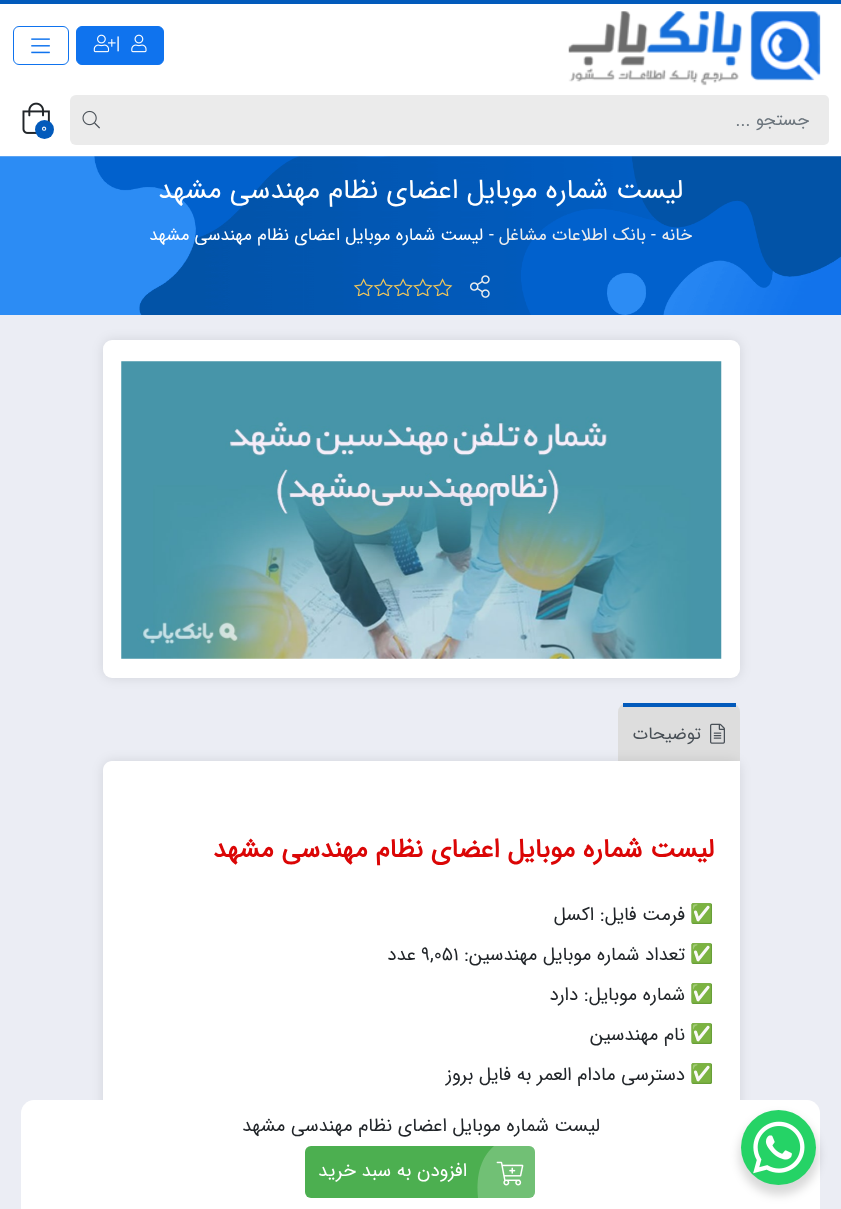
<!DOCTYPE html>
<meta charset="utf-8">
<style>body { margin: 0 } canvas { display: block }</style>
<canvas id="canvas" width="841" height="1209"></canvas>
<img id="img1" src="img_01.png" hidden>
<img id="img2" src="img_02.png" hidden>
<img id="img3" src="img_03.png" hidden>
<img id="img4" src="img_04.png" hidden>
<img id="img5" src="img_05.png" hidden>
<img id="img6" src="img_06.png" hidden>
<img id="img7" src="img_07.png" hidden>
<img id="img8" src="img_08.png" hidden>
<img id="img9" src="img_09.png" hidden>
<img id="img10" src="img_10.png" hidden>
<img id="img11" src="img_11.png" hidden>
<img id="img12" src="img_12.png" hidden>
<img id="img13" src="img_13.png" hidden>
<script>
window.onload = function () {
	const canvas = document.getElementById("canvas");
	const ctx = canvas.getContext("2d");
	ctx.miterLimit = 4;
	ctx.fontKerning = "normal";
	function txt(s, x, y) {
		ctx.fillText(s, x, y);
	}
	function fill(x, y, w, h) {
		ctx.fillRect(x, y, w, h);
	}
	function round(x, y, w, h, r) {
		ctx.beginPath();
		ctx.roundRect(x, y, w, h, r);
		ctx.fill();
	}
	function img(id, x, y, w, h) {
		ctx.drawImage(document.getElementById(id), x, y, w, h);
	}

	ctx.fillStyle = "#EBEDF4";
	fill(0, 0, 841, 1209);
	ctx.fillStyle = "#025ABB";
	fill(0, 0, 841, 4);
	ctx.fillStyle = "#FFFFFF";
	fill(0, 4, 841, 152);
	img("img1", 568, 11, 253, 75);
	ctx.fillStyle = "#0F73EE";
	ctx.beginPath();
	ctx.roundRect(76.5, 26.5, 87, 38, 5.5);
	ctx.fill();
	ctx.strokeStyle = "#0F73EE";
	ctx.stroke();
	img("img2", 131, 34, 16, 19);
	img("img3", 93, 34, 23, 19);
	ctx.beginPath();
	ctx.roundRect(13.5, 26.5, 55, 38, 5.5);
	ctx.stroke();
	img("img4", 31, 38, 19, 16);
	ctx.fillStyle = "#EBEBEB";
	ctx.beginPath();
	ctx.roundRect(120, 95, 709, 50, [0, 5, 5, 0]);
	ctx.fill();
	ctx.beginPath();
	ctx.roundRect(70, 95, 50, 50, [6, 0, 0, 6]);
	ctx.fill();
	img("img5", 82, 110, 18, 19);
	img("img6", 22, 102, 28, 32);
	ctx.fillStyle = "#025ABB";
	ctx.beginPath();
	ctx.arc(44.5, 129.5, 9.5, 0, Math.PI * 2);
	ctx.fill();
	img("img7", 0, 156, 841, 159);
	img("img8", 470, 275, 20, 23);
	img("img9", 353, 278, 100, 18);
	ctx.fillStyle = "rgba(0, 0, 0, 0.1)";
	ctx.filter = "blur(6px)";
	ctx.beginPath();
	ctx.roundRect(103, 340, 637, 338, 9);
	ctx.fill();
	ctx.filter = "none";
	ctx.fillStyle = "#FFFFFF";
	round(103, 340, 637, 338, 9);
	img("img10", 121, 361, 601, 298);
	ctx.fillStyle = "#DDDDDD";
	ctx.beginPath();
	ctx.roundRect(618, 703, 122, 58, [9, 9, 0, 0]);
	ctx.fill();
	ctx.fillStyle = "#025ABB";
	fill(623, 703, 113, 4);
	img("img11", 710, 723, 15, 21);
	ctx.fillStyle = "rgba(0, 0, 0, 0.1)";
	ctx.filter = "blur(6px)";
	ctx.beginPath();
	ctx.roundRect(103, 761, 637, 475, 9);
	ctx.fill();
	ctx.filter = "none";
	ctx.fillStyle = "#FFFFFF";
	ctx.beginPath();
	ctx.moveTo(112, 761);
	ctx.lineTo(740, 761);
	ctx.lineTo(740, 1209);
	ctx.bezierCurveTo(740, 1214, 736, 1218, 731, 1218);
	ctx.lineTo(112, 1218);
	ctx.bezierCurveTo(107, 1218, 103, 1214, 103, 1209);
	ctx.lineTo(103, 770);
	ctx.bezierCurveTo(103, 765, 107, 761, 112, 761);
	ctx.closePath();
	ctx.fill();
	ctx.beginPath();
	ctx.moveTo(34, 1100);
	ctx.lineTo(807, 1100);
	ctx.bezierCurveTo(814, 1100, 820, 1106, 820, 1113);
	ctx.lineTo(820, 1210);
	ctx.lineTo(21, 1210);
	ctx.lineTo(21, 1113);
	ctx.bezierCurveTo(21, 1106, 27, 1100, 34, 1100);
	ctx.closePath();
	ctx.fill();
	ctx.fillStyle = "rgba(0, 0, 0, 0.15)";
	ctx.filter = "blur(5px)";
	ctx.beginPath();
	ctx.roundRect(739, 1115, 80, 80, 40);
	ctx.fill();
	ctx.filter = "none";
	ctx.fillStyle = "#25D366";
	ctx.beginPath();
	ctx.arc(778.5, 1147.5, 37.5, 0, Math.PI * 2);
	ctx.fill();
	img("img12", 753, 1121, 52, 53);
	ctx.fillStyle = "#4CAF50";
	round(305, 1146, 230, 52, 6);
	img("img13", 496, 1161, 28, 25);
	ctx.fillStyle = "rgba(255, 255, 255, 0.21)";
	ctx.beginPath();
	ctx.moveTo(478, 1198);
	ctx.bezierCurveTo(476, 1179, 479, 1159, 494, 1146);
	ctx.lineTo(529, 1146);
	ctx.bezierCurveTo(532, 1146, 535, 1149, 535, 1152);
	ctx.lineTo(535, 1192);
	ctx.bezierCurveTo(535, 1195, 532, 1198, 529, 1198);
	ctx.closePath();
	ctx.fill();
	ctx.font = "17.5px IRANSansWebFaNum";
	ctx.fillStyle = "#FFFFFF";
	txt("|", 116, 49);
	ctx.direction = "rtl";
	ctx.fillStyle = "#6C757D";
	txt("جستجو ...", 809, 125);
	ctx.direction = "ltr";
	ctx.font = "14px IRANSansWebFaNum";
	ctx.fillStyle = "#FFFFFF";
	txt("0", 41, 132);
	ctx.direction = "rtl";
	ctx.font = "27.5px IRANSansWebFaNum";
	txt("لیست شماره موبایل اعضای نظام مهندسی مشهد", 683, 198);
	ctx.font = "17.5px IRANSansWebFaNum";
	ctx.fillStyle = "#EEEEEE";
	txt("خانه", 692, 240);
	ctx.direction = "ltr";
	ctx.fillStyle = "#FFFFFF";
	txt("-", 651, 240);
	ctx.direction = "rtl";
	ctx.fillStyle = "#EEEEEE";
	txt("بانک اطلاعات مشاغل", 646, 240);
	ctx.direction = "ltr";
	ctx.fillStyle = "#FFFFFF";
	txt("-", 489, 240);
	ctx.direction = "rtl";
	txt("لیست شماره موبایل اعضای نظام مهندسی مشهد", 483, 240);
	ctx.fillStyle = "#495057";
	txt("توضیحات", 701, 739);
	ctx.font = "bold 26.25px IRANSansWebFaNum";
	ctx.fillStyle = "#DB0606";
	txt("لیست شماره موبایل اعضای نظام مهندسی مشهد", 714, 857);
	ctx.font = "18.75px Noto Color Emoji";
	ctx.fillStyle = "#212529";
	txt("✅", 714, 920);
	ctx.font = "18.75px IRANSansWebFaNum";
	txt("فرمت فایل: اکسل", 685, 920);
	ctx.font = "18.75px Noto Color Emoji";
	txt("✅", 714, 960);
	ctx.font = "18.75px IRANSansWebFaNum";
	txt("تعداد شماره موبایل مهندسین:", 685, 960);
	ctx.direction = "ltr";
	txt("9,051", 421, 960);
	ctx.direction = "rtl";
	txt("عدد", 416, 960);
	ctx.font = "18.75px Noto Color Emoji";
	txt("✅", 714, 1000);
	ctx.font = "18.75px IRANSansWebFaNum";
	txt("شماره موبایل: دارد", 685, 1000);
	ctx.font = "18.75px Noto Color Emoji";
	txt("✅", 714, 1040);
	ctx.font = "18.75px IRANSansWebFaNum";
	txt("نام مهندسین", 685, 1040);
	ctx.font = "18.75px Noto Color Emoji";
	txt("✅", 714, 1080);
	ctx.font = "18.75px IRANSansWebFaNum";
	txt("دسترسی مادام العمر به فایل بروز", 685, 1080);
	txt("لیست شماره موبایل اعضای نظام مهندسی مشهد", 600, 1131);
	ctx.fillStyle = "#FFFFFF";
	txt("افزودن به سبد خرید", 467, 1176);
};
</script>
